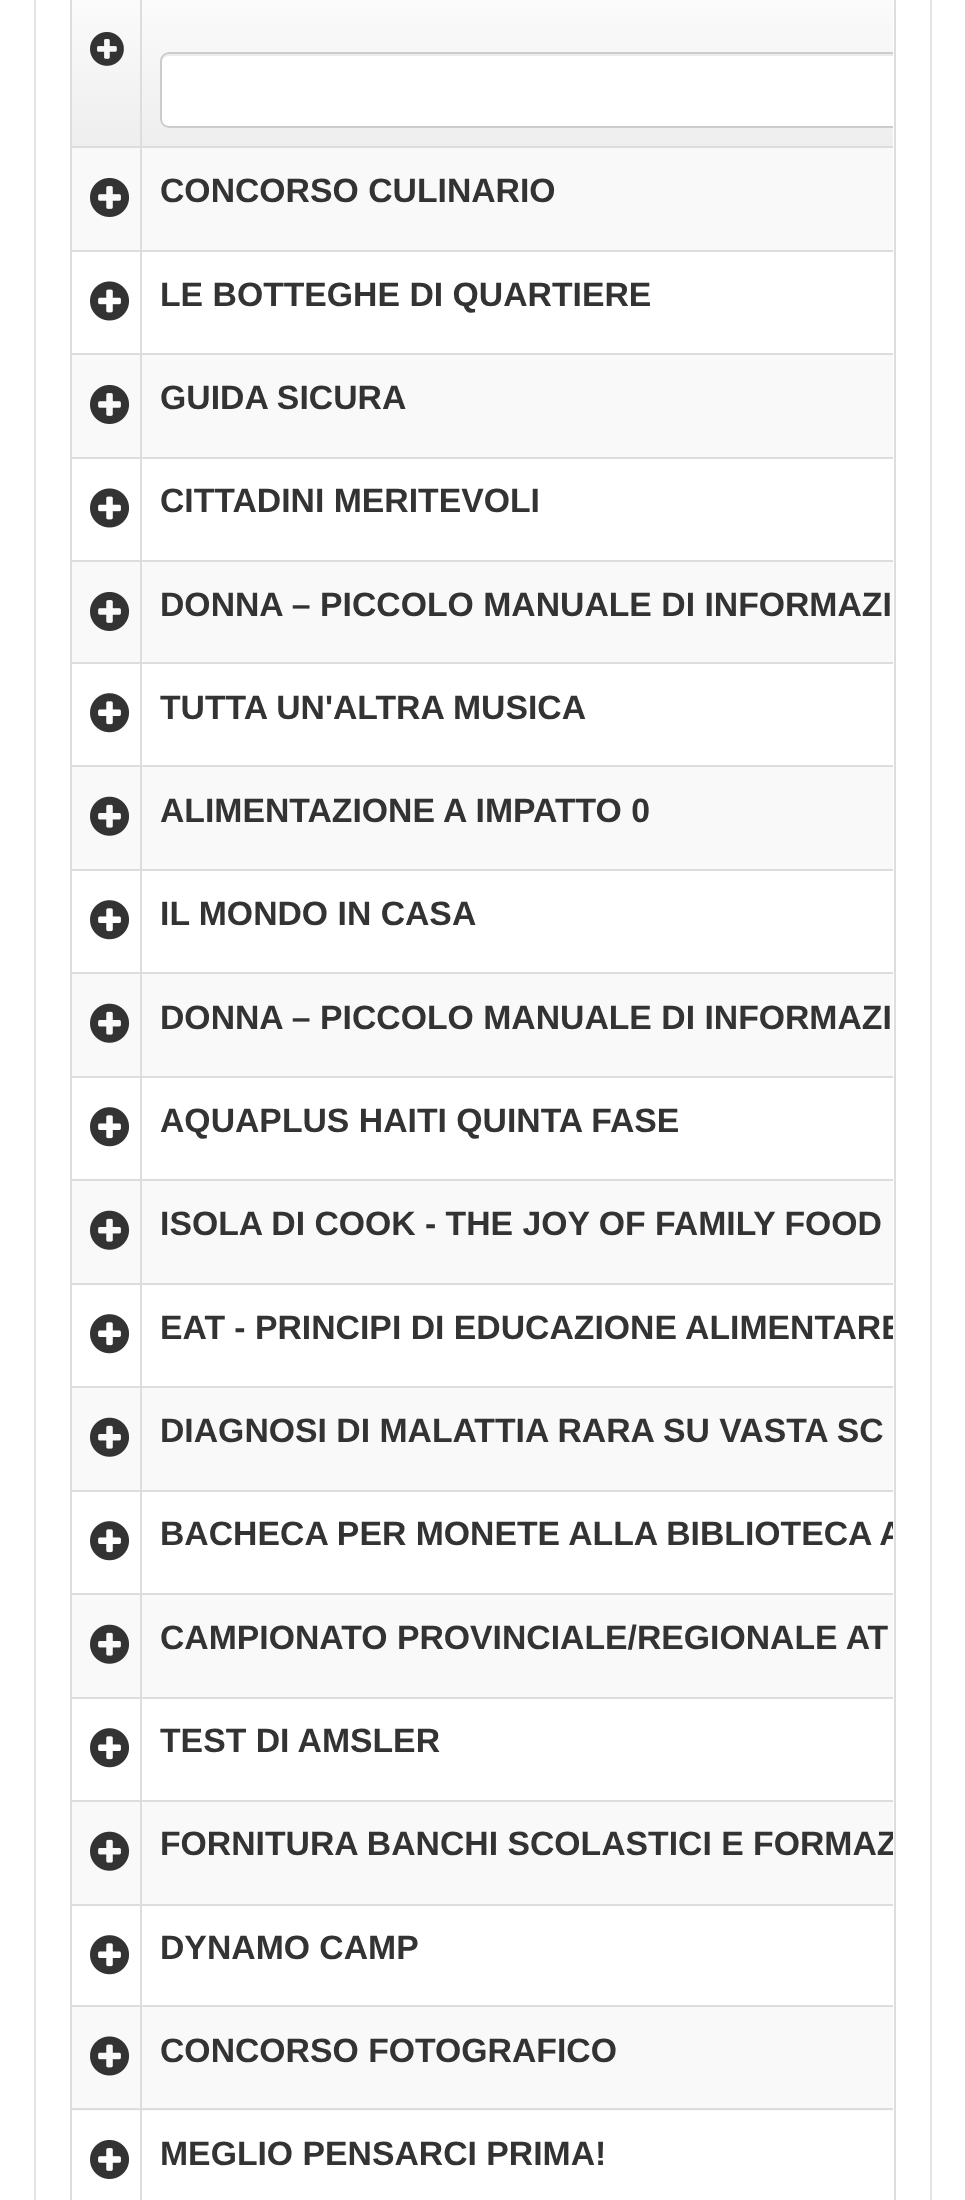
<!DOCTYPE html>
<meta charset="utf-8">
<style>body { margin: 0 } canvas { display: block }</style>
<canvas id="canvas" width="965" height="2200"></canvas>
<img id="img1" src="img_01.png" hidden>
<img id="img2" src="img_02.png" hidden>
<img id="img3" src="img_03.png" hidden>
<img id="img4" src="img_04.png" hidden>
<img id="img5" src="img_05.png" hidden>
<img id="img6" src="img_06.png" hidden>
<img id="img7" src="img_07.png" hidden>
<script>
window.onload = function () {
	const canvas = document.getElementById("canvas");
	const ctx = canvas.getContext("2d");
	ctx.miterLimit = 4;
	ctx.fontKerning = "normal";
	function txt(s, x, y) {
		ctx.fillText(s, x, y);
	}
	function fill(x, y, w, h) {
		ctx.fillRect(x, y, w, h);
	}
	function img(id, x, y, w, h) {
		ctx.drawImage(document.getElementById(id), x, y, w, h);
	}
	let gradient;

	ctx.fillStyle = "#FFFFFF";
	fill(0, 0, 965, 2200);
	ctx.strokeStyle = "#E7E1E8";
	ctx.lineWidth = 2;
	ctx.strokeRect(35, -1, 896, 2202);
	ctx.strokeStyle = "#DDDDDD";
	ctx.strokeRect(71, -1, 824, 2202);
	gradient = ctx.createLinearGradient(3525, -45, 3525, 146);
	gradient.addColorStop(0, "#FFFFFF");
	gradient.addColorStop(1, "#EEEEEE");
	ctx.fillStyle = gradient;
	fill(72, 0, 821, 146);
	ctx.fillStyle = "#F9F9F9";
	fill(72, 148, 821, 102);
	ctx.fillStyle = "#DDDDDD";
	fill(140, 146, 753, 2);
	fill(140, 250, 753, 2);
	ctx.fillStyle = "#F9F9F9";
	fill(72, 355, 821, 102);
	ctx.fillStyle = "#DDDDDD";
	fill(140, 353, 753, 2);
	fill(140, 457, 753, 2);
	ctx.fillStyle = "#F9F9F9";
	fill(72, 562, 821, 100);
	ctx.fillStyle = "#DDDDDD";
	fill(140, 560, 753, 2);
	fill(140, 662, 753, 2);
	fill(140, 765, 753, 2);
	ctx.fillStyle = "#F9F9F9";
	fill(72, 767, 821, 102);
	ctx.fillStyle = "#DDDDDD";
	fill(140, 869, 753, 2);
	fill(140, 972, 753, 2);
	ctx.fillStyle = "#F9F9F9";
	fill(72, 974, 821, 102);
	ctx.fillStyle = "#DDDDDD";
	fill(140, 1076, 753, 2);
	fill(140, 1179, 753, 2);
	ctx.fillStyle = "#F9F9F9";
	fill(72, 1181, 821, 102);
	ctx.fillStyle = "#DDDDDD";
	fill(140, 1283, 753, 2);
	fill(140, 1386, 753, 2);
	ctx.fillStyle = "#F9F9F9";
	fill(72, 1388, 821, 102);
	ctx.fillStyle = "#DDDDDD";
	fill(140, 1490, 753, 2);
	fill(140, 1593, 753, 2);
	ctx.fillStyle = "#F9F9F9";
	fill(72, 1595, 821, 102);
	ctx.fillStyle = "#DDDDDD";
	fill(140, 1697, 753, 2);
	fill(140, 1800, 753, 2);
	ctx.fillStyle = "#F9F9F9";
	fill(72, 1802, 821, 102);
	ctx.fillStyle = "#DDDDDD";
	fill(140, 1904, 753, 2);
	fill(140, 2005, 753, 2);
	ctx.fillStyle = "#F9F9F9";
	fill(72, 2007, 821, 104);
	ctx.fillStyle = "#DDDDDD";
	fill(140, 2108, 753, 2);
	fill(140, 2108, 2, 92);
	fill(72, 2108, 70, 2);
	fill(140, 2005, 2, 106);
	fill(72, 2005, 70, 2);
	fill(140, 1904, 2, 103);
	fill(72, 1904, 70, 2);
	fill(140, 1800, 2, 106);
	fill(72, 1800, 70, 2);
	fill(140, 1697, 2, 105);
	fill(72, 1697, 70, 2);
	fill(140, 1593, 2, 106);
	fill(72, 1593, 70, 2);
	fill(140, 1490, 2, 105);
	fill(72, 1490, 70, 2);
	fill(140, 1386, 2, 106);
	fill(72, 1386, 70, 2);
	fill(140, 1283, 2, 105);
	fill(72, 1283, 70, 2);
	fill(140, 1179, 2, 106);
	fill(72, 1179, 70, 2);
	fill(140, 1076, 2, 105);
	fill(72, 1076, 70, 2);
	fill(140, 972, 2, 106);
	fill(72, 972, 70, 2);
	fill(140, 869, 2, 105);
	fill(72, 869, 70, 2);
	fill(140, 765, 2, 106);
	fill(72, 765, 70, 2);
	fill(140, 662, 2, 105);
	fill(72, 662, 70, 2);
	fill(140, 560, 2, 104);
	fill(72, 560, 70, 2);
	fill(140, 457, 2, 106);
	fill(72, 457, 70, 2);
	fill(140, 353, 2, 106);
	fill(72, 353, 70, 2);
	fill(140, 250, 2, 106);
	fill(72, 250, 70, 2);
	fill(140, 146, 2, 106);
	fill(72, 146, 70, 2);
	fill(140, 0, 2, 149);
	img("img1", 90, 32, 34, 34);
	ctx.fillStyle = "#FFFFFF";
	ctx.beginPath();
	ctx.roundRect(160, 52, 733, 76, [9, 0, 0, 9]);
	ctx.fill();
	ctx.save();
	ctx.beginPath();
	ctx.rect(72, 0, 821, 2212);
	ctx.clip();
	ctx.fillStyle = "#ECECEC";
	ctx.beginPath();
	ctx.moveTo(169, 56);
	ctx.lineTo(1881, 56);
	ctx.bezierCurveTo(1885, 56, 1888, 59, 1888, 63);
	ctx.bezierCurveTo(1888, 59, 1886, 54, 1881, 54);
	ctx.lineTo(169, 54);
	ctx.bezierCurveTo(164, 54, 162, 59, 162, 63);
	ctx.bezierCurveTo(162, 59, 165, 56, 169, 56);
	ctx.closePath();
	ctx.fill();
	ctx.beginPath();
	ctx.roundRect(161, 53, 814, 74, 8);
	ctx.strokeStyle = "#CCCCCC";
	ctx.stroke();
	ctx.restore();
	img("img2", 90, 177, 40, 40);
	img("img3", 90, 281, 40, 40);
	img("img2", 90, 384, 40, 40);
	img("img3", 90, 488, 40, 40);
	img("img2", 90, 591, 40, 40);
	img("img4", 90, 693, 40, 40);
	img("img5", 90, 796, 40, 40);
	img("img4", 90, 900, 40, 40);
	img("img5", 90, 1003, 40, 40);
	img("img4", 90, 1107, 40, 40);
	img("img5", 90, 1210, 40, 40);
	img("img4", 90, 1314, 40, 40);
	img("img5", 90, 1417, 40, 40);
	img("img4", 90, 1521, 40, 40);
	img("img5", 90, 1624, 40, 40);
	img("img4", 90, 1728, 40, 40);
	img("img5", 90, 1831, 40, 40);
	img("img4", 90, 1935, 40, 40);
	img("img6", 90, 2036, 40, 40);
	img("img7", 90, 2139, 40, 40);
	ctx.font = "bold 33.75px Liberation Sans";
	ctx.fillStyle = "#333333";
	txt("CONCORSO CULINARIO", 160, 202);
	txt("LE BOTTEGHE DI QUARTIERE", 160, 306);
	txt("GUIDA SICURA", 160, 409);
	txt("CITTADINI MERITEVOLI", 160, 512);
	txt("DONNA – PICCOLO MANUALE DI INFORMAZI", 160, 616);
	txt("TUTTA UN'ALTRA MUSICA", 160, 719);
	txt("ALIMENTAZIONE A IMPATTO 0", 160, 822);
	txt("IL MONDO IN CASA", 160, 925);
	txt("DONNA – PICCOLO MANUALE DI INFORMAZI", 160, 1029);
	txt("AQUAPLUS HAITI QUINTA FASE", 160, 1132);
	txt("ISOLA DI COOK - THE JOY OF FAMILY FOOD", 160, 1235);
	ctx.save();
	ctx.beginPath();
	ctx.rect(72, 0, 821, 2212);
	ctx.clip();
	txt("EAT - PRINCIPI DI EDUCAZIONE ALIMENTARE", 160, 1339);
	ctx.restore();
	txt("DIAGNOSI DI MALATTIA RARA SU VASTA SC", 160, 1442);
	ctx.save();
	ctx.beginPath();
	ctx.rect(72, 0, 821, 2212);
	ctx.clip();
	txt("BACHECA PER MONETE ALLA BIBLIOTECA A", 160, 1545);
	ctx.restore();
	txt("CAMPIONATO PROVINCIALE/REGIONALE AT", 160, 1649);
	txt("TEST DI AMSLER", 160, 1752);
	ctx.save();
	ctx.beginPath();
	ctx.rect(72, 0, 821, 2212);
	ctx.clip();
	txt("FORNITURA BANCHI SCOLASTICI E FORMAZ", 160, 1855);
	ctx.restore();
	txt("DYNAMO CAMP", 160, 1959);
	txt("CONCORSO FOTOGRAFICO", 160, 2062);
	txt("MEGLIO PENSARCI PRIMA!", 160, 2165);
};
</script>
